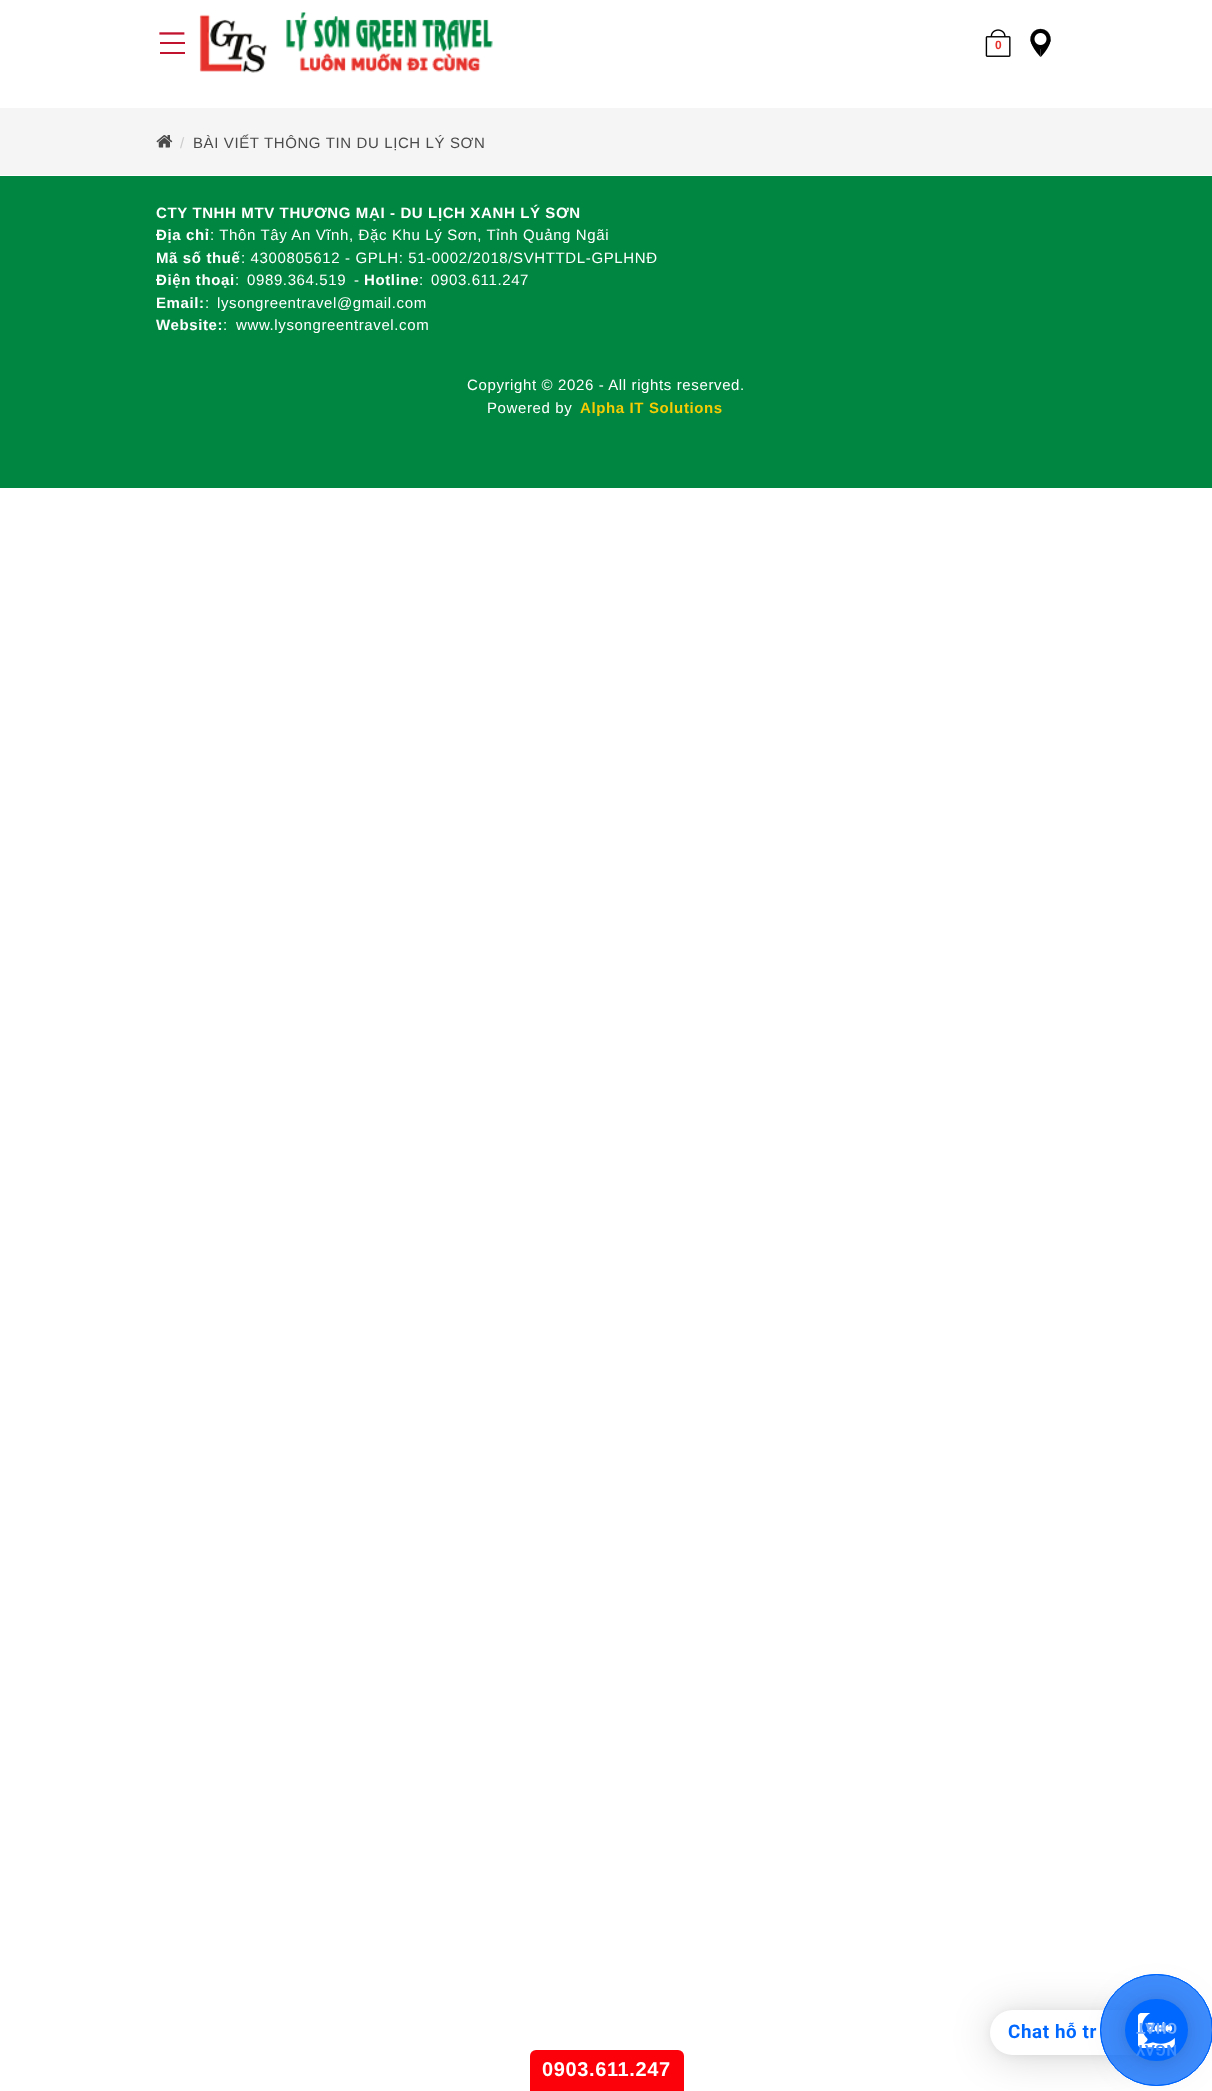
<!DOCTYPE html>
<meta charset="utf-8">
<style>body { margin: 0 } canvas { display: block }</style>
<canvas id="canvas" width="1212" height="2091"></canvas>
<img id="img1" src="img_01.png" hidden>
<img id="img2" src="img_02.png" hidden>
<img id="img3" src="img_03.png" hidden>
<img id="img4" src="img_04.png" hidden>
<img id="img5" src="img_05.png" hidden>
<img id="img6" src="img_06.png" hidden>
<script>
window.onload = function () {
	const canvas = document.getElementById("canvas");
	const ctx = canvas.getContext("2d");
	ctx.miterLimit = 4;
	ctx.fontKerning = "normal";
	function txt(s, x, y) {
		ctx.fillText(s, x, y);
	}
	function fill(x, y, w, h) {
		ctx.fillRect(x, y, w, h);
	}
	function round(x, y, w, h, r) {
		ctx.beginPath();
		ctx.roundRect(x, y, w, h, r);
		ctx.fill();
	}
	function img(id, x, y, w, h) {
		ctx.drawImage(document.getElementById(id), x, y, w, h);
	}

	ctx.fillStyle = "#FFFFFF";
	fill(0, 0, 1212, 2091);
	img("img1", 159, 32, 26, 22);
	img("img2", 199, 12, 294, 61);
	img("img3", 985, 29, 26, 28);
	img("img4", 1030, 28, 21, 29);
	ctx.fillStyle = "#F5F5F5";
	fill(0, 108, 1212, 67);
	img("img5", 156, 135, 17, 13);
	ctx.fillStyle = "#008640";
	fill(0, 176, 1212, 312);
	ctx.fillStyle = "rgba(0, 0, 0, 0.16)";
	ctx.filter = "blur(20px)";
	ctx.beginPath();
	ctx.roundRect(990, 2013, 150, 45, 22.5);
	ctx.fill();
	ctx.filter = "none";
	ctx.fillStyle = "rgba(0, 0, 0, 0.06)";
	ctx.filter = "blur(4px)";
	ctx.beginPath();
	ctx.roundRect(990, 2011, 150, 45, 22.5);
	ctx.fill();
	ctx.filter = "none";
	ctx.fillStyle = "#FFFFFF";
	ctx.beginPath();
	ctx.roundRect(990, 2010, 150, 45, [22.5, 0, 0, 22.5]);
	ctx.fill();
	ctx.fillStyle = "rgba(0, 104, 255, 0.5)";
	ctx.beginPath();
	ctx.roundRect(1100.5, 1974.5, 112, 111, 55.5);
	ctx.fill();
	ctx.strokeStyle = "#0068FF";
	ctx.stroke();
	ctx.beginPath();
	ctx.roundRect(1100.5, 1974.5, 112, 111, 55.5);
	ctx.fill();
	ctx.stroke();
	ctx.fillStyle = "rgba(0, 0, 0, 0.16)";
	ctx.filter = "blur(20px)";
	ctx.beginPath();
	ctx.roundRect(1125, 2001, 63, 63, 31.5);
	ctx.fill();
	ctx.filter = "none";
	ctx.fillStyle = "rgba(0, 0, 0, 0.06)";
	ctx.filter = "blur(4px)";
	ctx.beginPath();
	ctx.roundRect(1125, 2000, 63, 63, 31.5);
	ctx.fill();
	ctx.filter = "none";
	ctx.fillStyle = "#0068FF";
	round(1125, 1999, 63, 62, 31);
	img("img6", 1138, 2013, 37, 35);
	ctx.fillStyle = "#FD010B";
	ctx.beginPath();
	ctx.roundRect(530, 2050, 154, 41, [6, 6, 0, 0]);
	ctx.fill();
	ctx.letterSpacing = "0.62px";
	ctx.font = "bold 12px Liberation Sans";
	ctx.fillStyle = "#E5322C";
	txt("0", 995, 49);
	ctx.font = "15px Liberation Sans";
	ctx.fillStyle = "#CCCCCC";
	txt("/", 180, 148);
	ctx.fillStyle = "#4B4B4B";
	txt("BÀI VIẾT THÔNG TIN DU LỊCH LÝ SƠN", 193, 148);
	ctx.font = "bold 15px Liberation Sans";
	ctx.fillStyle = "#FFFFFF";
	txt("CTY TNHH MTV THƯƠNG MẠI - DU LỊCH XANH LÝ SƠN", 156, 218);
	txt("Địa chỉ", 156, 240);
	ctx.font = "15px Liberation Sans";
	txt(": Thôn Tây An Vĩnh, Đặc Khu Lý Sơn, Tỉnh Quảng Ngãi", 210, 240);
	ctx.font = "bold 15px Liberation Sans";
	txt("Mã số thuế", 156, 263);
	ctx.font = "15px Liberation Sans";
	txt(": 4300805612 - GPLH: 51-0002/2018/SVHTTDL-GPLHNĐ", 241, 263);
	ctx.font = "bold 15px Liberation Sans";
	txt("Điện thoại", 156, 285);
	ctx.font = "15px Liberation Sans";
	txt(":", 235, 285);
	txt("0989.364.519", 247, 285);
	txt("-", 354, 285);
	ctx.font = "bold 15px Liberation Sans";
	txt("Hotline", 364, 285);
	ctx.font = "15px Liberation Sans";
	txt(":", 419, 285);
	txt("0903.611.247", 431, 285);
	ctx.font = "bold 15px Liberation Sans";
	txt("Email:", 156, 308);
	ctx.font = "15px Liberation Sans";
	txt(":", 205, 308);
	txt("lysongreentravel@gmail.com", 217, 308);
	ctx.font = "bold 15px Liberation Sans";
	txt("Website:", 156, 330);
	ctx.font = "15px Liberation Sans";
	txt(":", 223, 330);
	txt("www.lysongreentravel.com", 236, 330);
	txt("Copyright © 2026 - All rights reserved.", 467, 390);
	txt("Powered by", 487, 413);
	ctx.font = "bold 15px Liberation Sans";
	ctx.fillStyle = "#F5CC04";
	txt("Alpha IT Solutions", 580, 413);
	ctx.font = "bold 18.75px Roboto";
	ctx.fillStyle = "#0068FF";
	txt("Chat hỗ tr", 1008, 2038);
	ctx.font = "bold 15px Roboto";
	ctx.fillStyle = "#74ADFF";
	ctx.save();
	ctx.translate(1177, 2023);
	ctx.rotate(180 * Math.PI / 180);
	ctx.fillText("CHAT", 0, 0);
	ctx.restore();
	ctx.fillStyle = "#3C8BFF";
	ctx.save();
	ctx.translate(1177, 2045);
	ctx.rotate(180 * Math.PI / 180);
	ctx.fillText("NGAY", 0, 0);
	ctx.restore();
	ctx.font = "bold 20px Liberation Sans";
	ctx.fillStyle = "#FFFFFF";
	txt("0903.611.247", 542, 2076);
};
</script>
